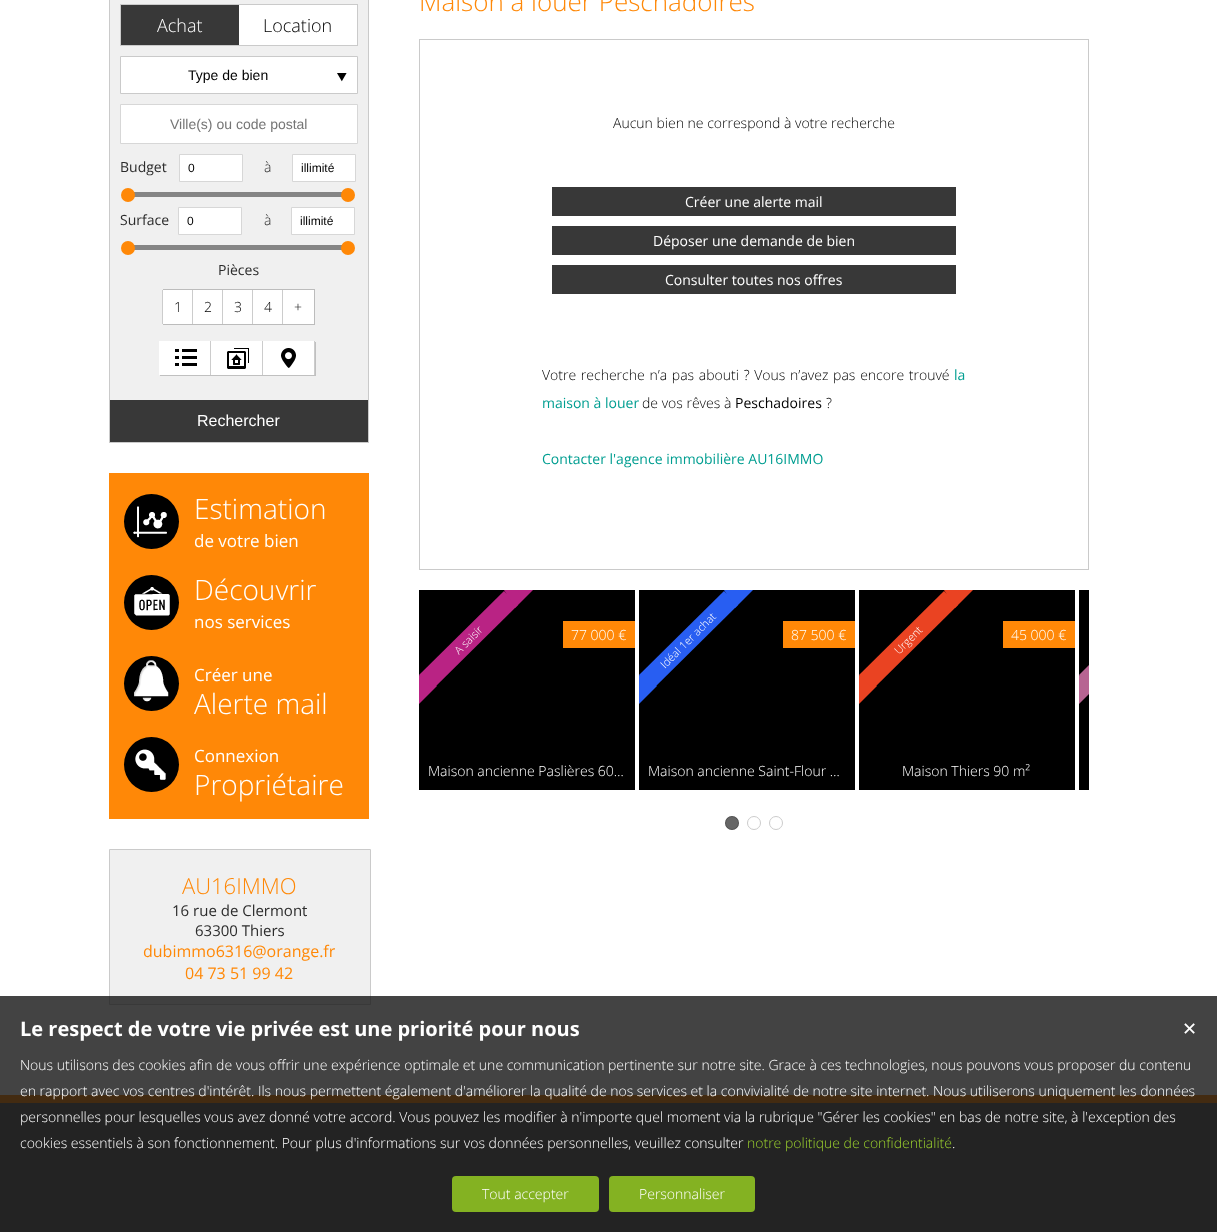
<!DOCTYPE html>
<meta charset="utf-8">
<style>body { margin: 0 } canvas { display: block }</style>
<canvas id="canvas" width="1217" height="1232"></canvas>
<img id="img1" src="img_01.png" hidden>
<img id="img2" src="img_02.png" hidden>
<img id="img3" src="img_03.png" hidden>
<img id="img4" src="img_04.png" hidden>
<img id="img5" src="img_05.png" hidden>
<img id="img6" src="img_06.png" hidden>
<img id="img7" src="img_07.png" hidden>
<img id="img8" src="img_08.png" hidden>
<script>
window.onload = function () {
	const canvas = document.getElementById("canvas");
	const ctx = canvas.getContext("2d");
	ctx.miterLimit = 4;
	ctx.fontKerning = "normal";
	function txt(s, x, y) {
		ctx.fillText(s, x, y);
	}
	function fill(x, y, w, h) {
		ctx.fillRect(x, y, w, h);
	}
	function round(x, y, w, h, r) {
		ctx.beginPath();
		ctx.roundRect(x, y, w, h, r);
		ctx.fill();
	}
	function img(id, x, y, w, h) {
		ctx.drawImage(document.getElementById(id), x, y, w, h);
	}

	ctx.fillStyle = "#FFFFFF";
	fill(0, 0, 1217, 1232);
	ctx.strokeStyle = "#CACACA";
	ctx.strokeRect(109.5, -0.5, 259, 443);
	ctx.fillStyle = "#F0F0F0";
	fill(110, 0, 258, 400);
	ctx.fillStyle = "#FFFFFF";
	fill(239, 5, 118, 40);
	ctx.strokeRect(120.5, 4.5, 237, 41);
	ctx.fillStyle = "#383838";
	fill(121, 5, 118, 40);
	ctx.fillStyle = "#FFFFFF";
	ctx.beginPath();
	ctx.rect(120.5, 56.5, 237, 37);
	ctx.fill();
	ctx.stroke();
	img("img1", 337, 73, 10, 9);
	ctx.beginPath();
	ctx.rect(120.5, 104.5, 237, 39);
	ctx.fill();
	ctx.strokeStyle = "#D7D7D7";
	ctx.stroke();
	ctx.beginPath();
	ctx.rect(179.5, 154.5, 63, 27);
	ctx.fill();
	ctx.stroke();
	ctx.beginPath();
	ctx.rect(292.5, 154.5, 63, 27);
	ctx.fill();
	ctx.stroke();
	ctx.fillStyle = "#858585";
	fill(130, 192, 220, 5);
	ctx.fillStyle = "#FF8807";
	ctx.beginPath();
	ctx.arc(128, 195, 7, 0, Math.PI * 2);
	ctx.fill();
	ctx.beginPath();
	ctx.arc(348, 195, 7, 0, Math.PI * 2);
	ctx.fill();
	ctx.fillStyle = "#FFFFFF";
	ctx.beginPath();
	ctx.rect(178.5, 207.5, 63, 27);
	ctx.fill();
	ctx.stroke();
	ctx.beginPath();
	ctx.rect(291.5, 207.5, 63, 27);
	ctx.fill();
	ctx.stroke();
	ctx.fillStyle = "#858585";
	fill(130, 245, 220, 5);
	ctx.fillStyle = "#FF8807";
	ctx.beginPath();
	ctx.arc(128, 248, 7, 0, Math.PI * 2);
	ctx.fill();
	ctx.beginPath();
	ctx.arc(348, 248, 7, 0, Math.PI * 2);
	ctx.fill();
	ctx.strokeStyle = "#BCBCBC";
	ctx.strokeRect(163.5, 289.5, 151, 35);
	ctx.fillStyle = "#FFFFFF";
	fill(163, 290, 151, 34);
	ctx.fillStyle = "#CCCCCC";
	fill(162, 290, 1, 34);
	fill(192, 290, 1, 34);
	fill(222, 290, 1, 34);
	fill(252, 290, 1, 34);
	fill(282, 290, 1, 34);
	ctx.fillStyle = "rgba(0, 0, 0, 0.2)";
	ctx.filter = "blur(0.5px)";
	ctx.beginPath();
	ctx.rect(160, 342, 52, 34);
	ctx.fill();
	ctx.filter = "none";
	ctx.fillStyle = "#FFFFFF";
	fill(159, 341, 51, 34);
	ctx.fillStyle = "#CCCCCC";
	fill(210, 341, 1, 34);
	img("img2", 175, 349, 22, 17);
	ctx.fillStyle = "rgba(0, 0, 0, 0.2)";
	ctx.filter = "blur(0.5px)";
	ctx.beginPath();
	ctx.rect(212, 342, 52, 34);
	ctx.fill();
	ctx.filter = "none";
	ctx.fillStyle = "#FFFFFF";
	fill(211, 341, 51, 34);
	ctx.fillStyle = "#CCCCCC";
	fill(262, 341, 1, 34);
	img("img3", 227, 348, 22, 21);
	ctx.fillStyle = "rgba(0, 0, 0, 0.2)";
	ctx.filter = "blur(0.5px)";
	ctx.beginPath();
	ctx.rect(264, 342, 52, 34);
	ctx.fill();
	ctx.filter = "none";
	ctx.fillStyle = "#FFFFFF";
	fill(263, 341, 51, 34);
	ctx.fillStyle = "#CCCCCC";
	fill(314, 341, 1, 34);
	img("img4", 281, 348, 15, 20);
	ctx.fillStyle = "#383838";
	fill(110, 400, 258, 42);
	ctx.fillStyle = "#FF8807";
	fill(109, 473, 260, 346);
	ctx.fillStyle = "#000000";
	ctx.beginPath();
	ctx.arc(151.5, 521.5, 27.5, 0, Math.PI * 2);
	ctx.fill();
	img("img5", 133, 506, 34, 32);
	ctx.beginPath();
	ctx.arc(151.5, 602.5, 27.5, 0, Math.PI * 2);
	ctx.fill();
	img("img6", 134, 587, 36, 29);
	ctx.beginPath();
	ctx.arc(151.5, 683.5, 27.5, 0, Math.PI * 2);
	ctx.fill();
	img("img7", 134, 660, 35, 42);
	ctx.beginPath();
	ctx.arc(151.5, 764.5, 27.5, 0, Math.PI * 2);
	ctx.fill();
	img("img8", 135, 749, 31, 31);
	ctx.fillStyle = "#F0F0F0";
	ctx.beginPath();
	ctx.rect(109.5, 849.5, 261, 155);
	ctx.fill();
	ctx.strokeStyle = "#CACACA";
	ctx.stroke();
	ctx.strokeRect(419.5, 39.5, 669, 530);
	ctx.fillStyle = "#383838";
	fill(552, 187, 404, 29);
	fill(552, 226, 404, 29);
	fill(552, 265, 404, 29);
	ctx.fillStyle = "#000000";
	fill(419, 590, 216, 200);
	ctx.fillStyle = "#B92384";
	ctx.beginPath();
	ctx.moveTo(419, 704);
	ctx.lineTo(419, 675);
	ctx.lineTo(437, 686);
	ctx.closePath();
	ctx.fill();
	ctx.beginPath();
	ctx.moveTo(419, 675);
	ctx.lineTo(504, 591);
	ctx.lineTo(518, 605);
	ctx.lineTo(433, 689);
	ctx.closePath();
	ctx.fill();
	ctx.beginPath();
	ctx.moveTo(504, 590);
	ctx.lineTo(533, 590);
	ctx.lineTo(515, 608);
	ctx.closePath();
	ctx.fill();
	ctx.fillStyle = "#FF8807";
	fill(563, 621, 72, 27);
	ctx.fillStyle = "#000000";
	fill(639, 590, 216, 200);
	ctx.fillStyle = "#285EF2";
	ctx.beginPath();
	ctx.moveTo(639, 704);
	ctx.lineTo(639, 675);
	ctx.lineTo(657, 686);
	ctx.closePath();
	ctx.fill();
	ctx.beginPath();
	ctx.moveTo(639, 675);
	ctx.lineTo(724, 591);
	ctx.lineTo(738, 605);
	ctx.lineTo(653, 689);
	ctx.closePath();
	ctx.fill();
	ctx.beginPath();
	ctx.moveTo(724, 590);
	ctx.lineTo(753, 590);
	ctx.lineTo(735, 608);
	ctx.closePath();
	ctx.fill();
	ctx.fillStyle = "#FF8807";
	fill(783, 621, 72, 27);
	ctx.fillStyle = "#000000";
	fill(859, 590, 216, 200);
	ctx.fillStyle = "#EA4322";
	ctx.beginPath();
	ctx.moveTo(859, 704);
	ctx.lineTo(859, 675);
	ctx.lineTo(877, 686);
	ctx.closePath();
	ctx.fill();
	ctx.beginPath();
	ctx.moveTo(859, 675);
	ctx.lineTo(944, 591);
	ctx.lineTo(958, 605);
	ctx.lineTo(873, 689);
	ctx.closePath();
	ctx.fill();
	ctx.beginPath();
	ctx.moveTo(944, 590);
	ctx.lineTo(973, 590);
	ctx.lineTo(955, 608);
	ctx.closePath();
	ctx.fill();
	ctx.fillStyle = "#FF8807";
	fill(1003, 621, 72, 27);
	ctx.fillStyle = "#000000";
	fill(1079, 590, 10, 200);
	ctx.save();
	ctx.beginPath();
	ctx.rect(419, 570, 670, 220);
	ctx.clip();
	ctx.fillStyle = "#B76492";
	ctx.beginPath();
	ctx.moveTo(1079, 704);
	ctx.lineTo(1079, 675);
	ctx.lineTo(1097, 686);
	ctx.closePath();
	ctx.fill();
	ctx.beginPath();
	ctx.moveTo(1079, 675);
	ctx.lineTo(1164, 591);
	ctx.lineTo(1178, 605);
	ctx.lineTo(1093, 689);
	ctx.closePath();
	ctx.fill();
	ctx.restore();
	ctx.fillStyle = "#666666";
	ctx.beginPath();
	ctx.arc(732, 823, 7, 0, Math.PI * 2);
	ctx.fill();
	ctx.beginPath();
	ctx.arc(732, 823, 6.5, 0, Math.PI * 2);
	ctx.strokeStyle = "rgba(0, 0, 0, 0.2)";
	ctx.stroke();
	ctx.beginPath();
	ctx.arc(754, 823, 6.5, 0, Math.PI * 2);
	ctx.strokeStyle = "#CCCCCC";
	ctx.stroke();
	ctx.beginPath();
	ctx.arc(776, 823, 6.5, 0, Math.PI * 2);
	ctx.stroke();
	ctx.fillStyle = "#616161";
	fill(0, 1103, 1217, 129);
	ctx.fillStyle = "#FF8807";
	fill(0, 1095, 1217, 8);
	ctx.fillStyle = "rgba(20, 20, 20, 0.8)";
	fill(0, 996, 1217, 236);
	ctx.fillStyle = "#84B222";
	round(452, 1176, 147, 36, 4);
	round(609, 1176, 146, 36, 4);
	ctx.font = "300 18px Open Sans";
	ctx.fillStyle = "#FFFFFF";
	txt("Achat", 157, 32);
	ctx.fillStyle = "#000000";
	txt("Location", 263, 32);
	ctx.font = "14px Liberation Sans";
	txt("Type de bien", 188, 80);
	ctx.fillStyle = "#757575";
	txt("Ville(s) ou code postal", 170, 129);
	ctx.font = "14px Open Sans";
	ctx.fillStyle = "#2B2B2B";
	txt("Budget", 120, 172);
	ctx.font = "12px Liberation Sans";
	ctx.fillStyle = "#000000";
	txt("0", 188, 172);
	ctx.font = "300 14px Open Sans";
	ctx.fillStyle = "#2B2B2B";
	txt("à", 264, 172);
	ctx.font = "12px Liberation Sans";
	ctx.fillStyle = "#000000";
	txt("illimité", 301, 172);
	ctx.font = "14px Open Sans";
	ctx.fillStyle = "#2B2B2B";
	txt("Surface", 120, 225);
	ctx.font = "12px Liberation Sans";
	ctx.fillStyle = "#000000";
	txt("0", 187, 225);
	ctx.font = "300 14px Open Sans";
	ctx.fillStyle = "#2B2B2B";
	txt("à", 264, 225);
	ctx.font = "12px Liberation Sans";
	ctx.fillStyle = "#000000";
	txt("illimité", 300, 225);
	ctx.font = "14px Open Sans";
	ctx.fillStyle = "#2B2B2B";
	txt("Pièces", 218, 275);
	ctx.font = "300 14px Open Sans";
	ctx.fillStyle = "#000000";
	txt("1", 174, 312);
	txt("2", 204, 312);
	txt("3", 234, 312);
	txt("4", 264, 312);
	txt("+", 294, 312);
	ctx.font = "16px Liberation Sans";
	ctx.fillStyle = "#FFFFFF";
	txt("Rechercher", 197, 426);
	ctx.font = "300 28px Open Sans";
	txt("Estimation", 194, 519);
	ctx.font = "17px Open Sans";
	txt("de votre bien", 194, 547);
	ctx.font = "300 28px Open Sans";
	txt("Découvrir", 194, 600);
	ctx.font = "17px Open Sans";
	txt("nos services", 194, 628);
	txt("Créer une", 194, 681);
	ctx.font = "300 28px Open Sans";
	txt("Alerte mail", 194, 714);
	ctx.font = "17px Open Sans";
	txt("Connexion", 194, 762);
	ctx.font = "300 28px Open Sans";
	txt("Propriétaire", 194, 795);
	ctx.font = "300 22px Open Sans";
	ctx.fillStyle = "#FF8807";
	txt("AU16IMMO", 182, 894);
	ctx.font = "15px Open Sans";
	ctx.fillStyle = "#2B2B2B";
	txt("16 rue de Clermont", 172, 916);
	txt("63300 Thiers", 195, 936);
	ctx.font = "16px Open Sans";
	ctx.fillStyle = "#FF8807";
	txt("dubimmo6316@orange.fr", 143, 957);
	txt("04 73 51 99 42", 185, 979);
	ctx.font = "300 26px Open Sans";
	txt("Maison à louer Peschadoires", 419, 11);
	ctx.font = "300 14px Open Sans";
	ctx.fillStyle = "#000000";
	txt("Aucun bien ne correspond à votre recherche", 613, 128);
	ctx.font = "14px Open Sans";
	ctx.fillStyle = "#FFFFFF";
	txt("Créer une alerte mail", 685, 207);
	txt("Déposer une demande de bien", 653, 246);
	txt("Consulter toutes nos offres", 665, 285);
	ctx.wordSpacing = "1.1px";
	ctx.font = "300 14px Open Sans";
	ctx.fillStyle = "#000000";
	txt("Votre recherche n’a pas abouti ? Vous n’avez pas encore trouvé", 542, 380);
	ctx.wordSpacing = "0px";
	ctx.font = "14px Open Sans";
	ctx.fillStyle = "#009E91";
	txt("la", 954, 380);
	txt("maison à louer", 542, 408);
	ctx.font = "300 14px Open Sans";
	ctx.fillStyle = "#000000";
	txt("de vos rêves à", 642, 408);
	ctx.font = "14px Open Sans";
	txt("Peschadoires", 735, 408);
	ctx.font = "300 14px Open Sans";
	txt("?", 826, 408);
	ctx.font = "14px Open Sans";
	ctx.fillStyle = "#009E91";
	txt("Contacter l'agence immobilière AU16IMMO", 542, 464);
	ctx.font = "300 11px Open Sans";
	ctx.fillStyle = "#FFFFFF";
	ctx.save();
	ctx.translate(459, 655);
	ctx.rotate(-45 * Math.PI / 180);
	ctx.fillText("A saisir", 0, 0);
	ctx.restore();
	ctx.font = "300 14px Open Sans";
	txt("77 000 €", 571, 640);
	txt("Maison ancienne Paslières 60…", 428, 776);
	ctx.font = "300 11px Open Sans";
	ctx.save();
	ctx.translate(665, 669);
	ctx.rotate(-45 * Math.PI / 180);
	ctx.fillText("Idéal 1er achat", 0, 0);
	ctx.restore();
	ctx.font = "300 14px Open Sans";
	txt("87 500 €", 791, 640);
	txt("Maison ancienne Saint-Flour …", 648, 776);
	ctx.font = "300 11px Open Sans";
	ctx.save();
	ctx.translate(899, 655);
	ctx.rotate(-45 * Math.PI / 180);
	ctx.fillText("Urgent", 0, 0);
	ctx.restore();
	ctx.font = "300 14px Open Sans";
	txt("45 000 €", 1011, 640);
	txt("Maison Thiers 90 m²", 902, 776);
	ctx.font = "bold 20px Open Sans";
	txt("Le respect de votre vie privée est une priorité pour nous", 20, 1036);
	ctx.font = "18px DejaVu Sans";
	txt("✕", 1182, 1035);
	ctx.font = "300 14px Open Sans";
	txt("Nous utilisons des cookies afin de vous offrir une expérience optimale et une communication pertinente sur notre site. Grace à ces technologies, nous pouvons vous proposer du contenu", 20, 1070);
	txt("en rapport avec vos centres d'intérêt. Ils nous permettent également d'améliorer la qualité de nos services et la convivialité de notre site internet. Nous utiliserons uniquement les données", 20, 1096);
	txt("personnelles pour lesquelles vous avez donné votre accord. Vous pouvez les modifier à n'importe quel moment via la rubrique \"Gérer les cookies\" en bas de notre site, à l'exception des", 20, 1122);
	txt("cookies essentiels à son fonctionnement. Pour plus d'informations sur vos données personnelles, veuillez consulter", 20, 1148);
	ctx.fillStyle = "#9CD22E";
	txt("notre politique de confidentialité", 747, 1148);
	ctx.fillStyle = "#FFFFFF";
	txt(".", 952, 1148);
	txt("Tout accepter", 482, 1199);
	txt("Personnaliser", 639, 1199);
};
</script>
